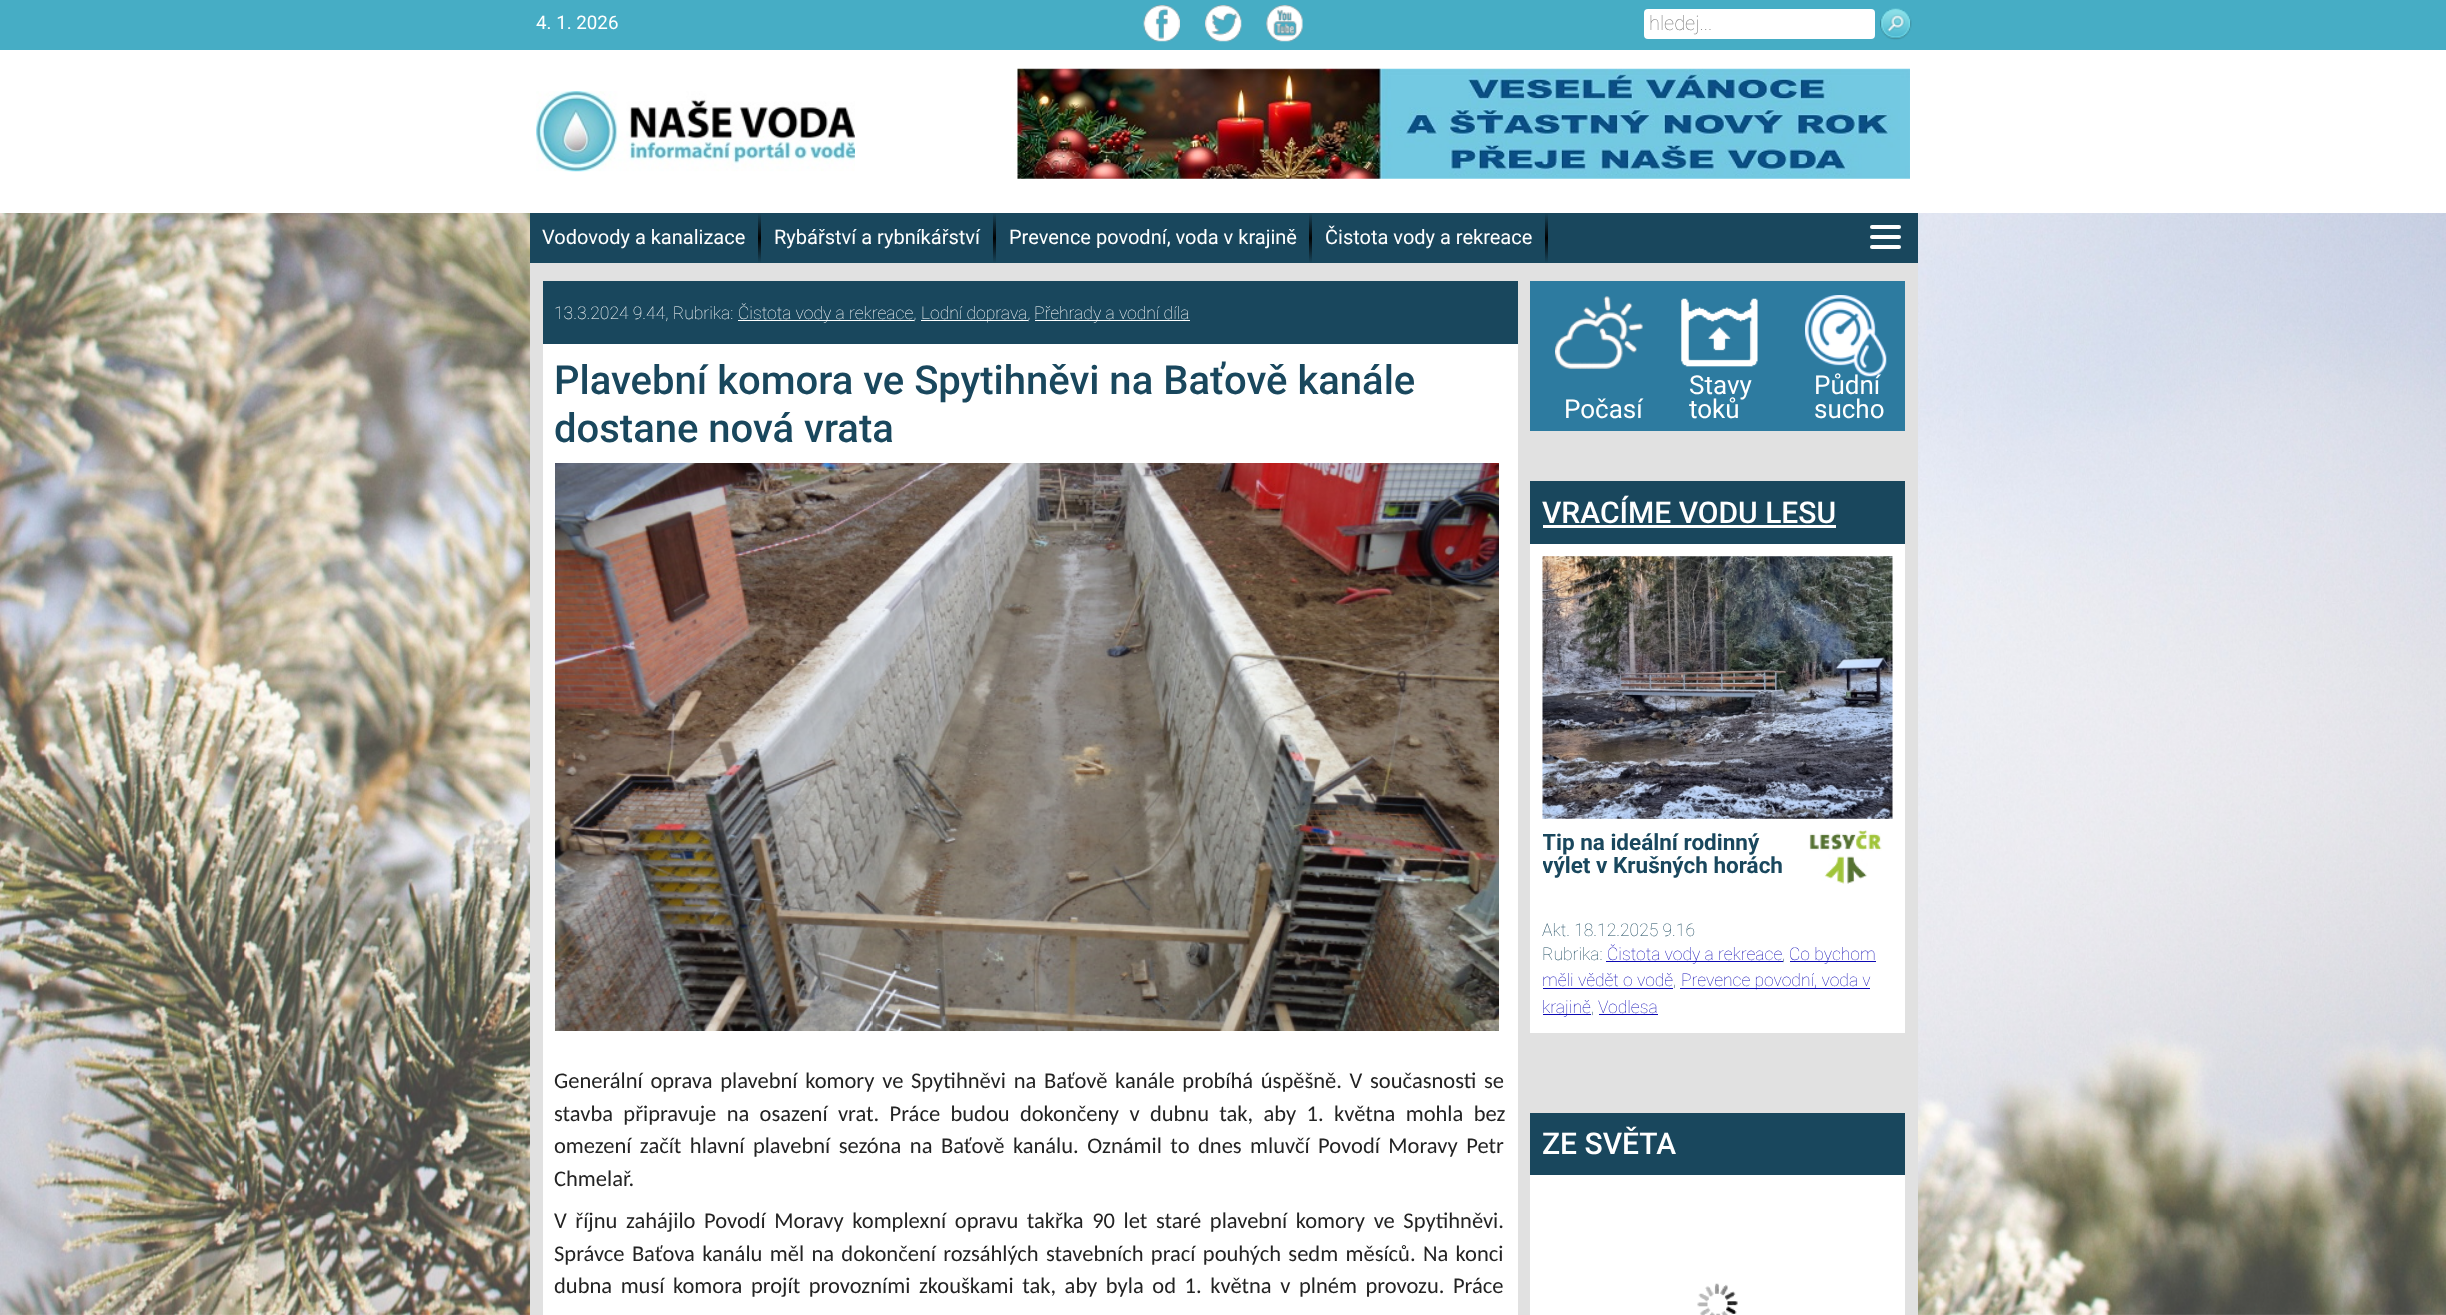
<!DOCTYPE html>
<meta charset="utf-8">
<style>body { margin: 0 } canvas { display: block }</style>
<canvas id="canvas" width="2446" height="1315"></canvas>
<img id="img1" src="img_01.png" hidden>
<img id="img2" src="img_02.png" hidden>
<img id="img3" src="img_03.png" hidden>
<img id="img4" src="img_04.png" hidden>
<img id="img5" src="img_05.png" hidden>
<img id="img6" src="img_06.png" hidden>
<img id="img7" src="img_07.png" hidden>
<img id="img8" src="img_08.png" hidden>
<img id="img9" src="img_09.png" hidden>
<img id="img10" src="img_10.png" hidden>
<img id="img11" src="img_11.png" hidden>
<img id="img12" src="img_12.png" hidden>
<img id="img13" src="img_13.png" hidden>
<img id="img14" src="img_14.png" hidden>
<script>
window.onload = function () {
	const canvas = document.getElementById("canvas");
	const ctx = canvas.getContext("2d");
	ctx.miterLimit = 4;
	ctx.fontKerning = "normal";
	function txt(s, x, y) {
		ctx.fillText(s, x, y);
	}
	function fill(x, y, w, h) {
		ctx.fillRect(x, y, w, h);
	}
	function round(x, y, w, h, r) {
		ctx.beginPath();
		ctx.roundRect(x, y, w, h, r);
		ctx.fill();
	}
	function img(id, x, y, w, h) {
		ctx.drawImage(document.getElementById(id), x, y, w, h);
	}
	let gradient;

	ctx.fillStyle = "#FFFFFF";
	fill(0, 0, 2446, 1315);
	ctx.fillStyle = "#46ADC5";
	fill(0, 0, 2446, 50);
	img("img1", 1143, 5, 37, 37);
	img("img2", 1205, 5, 37, 37);
	img("img3", 1266, 5, 37, 37);
	ctx.fillStyle = "#FFFFFF";
	round(1644, 9, 231, 30, 4);
	img("img4", 1880, 8, 32, 32);
	img("img5", 536, 91, 319, 81);
	img("img6", 1017, 68, 893, 111);
	img("img7", 0, 213, 2446, 1102);
	ctx.fillStyle = "#E1E1E1";
	fill(530, 263, 1388, 1052);
	ctx.fillStyle = "#19475D";
	fill(530, 213, 1388, 50);
	gradient = ctx.createLinearGradient(759, 213, 759, 263);
	gradient.addColorStop(0, "#19475D");
	gradient.addColorStop(0.5, "#000000");
	gradient.addColorStop(1, "#19475D");
	ctx.fillStyle = gradient;
	fill(758, 213, 3, 50);
	gradient = ctx.createLinearGradient(994, 213, 994, 263);
	gradient.addColorStop(0, "#19475D");
	gradient.addColorStop(0.5, "#000000");
	gradient.addColorStop(1, "#19475D");
	ctx.fillStyle = gradient;
	fill(993, 213, 3, 50);
	gradient = ctx.createLinearGradient(1310, 213, 1310, 263);
	gradient.addColorStop(0, "#19475D");
	gradient.addColorStop(0.5, "#000000");
	gradient.addColorStop(1, "#19475D");
	ctx.fillStyle = gradient;
	fill(1309, 213, 3, 50);
	gradient = ctx.createLinearGradient(1546, 213, 1546, 263);
	gradient.addColorStop(0, "#19475D");
	gradient.addColorStop(0.5, "#000000");
	gradient.addColorStop(1, "#19475D");
	ctx.fillStyle = gradient;
	fill(1545, 213, 3, 50);
	ctx.fillStyle = "#FFFFFF";
	round(1870, 225, 31, 4, 2);
	round(1870, 235, 31, 4, 2);
	round(1870, 245, 31, 4, 2);
	ctx.fillStyle = "#19475D";
	fill(543, 281, 975, 63);
	ctx.fillStyle = "#FFFFFF";
	fill(738, 320, 176, 1);
	fill(921, 320, 107, 1);
	fill(1035, 320, 155, 1);
	fill(543, 344, 975, 971);
	img("img8", 555, 463, 944, 568);
	ctx.fillStyle = "#2D7BA0";
	fill(1530, 281, 375, 150);
	img("img9", 1555, 296, 88, 73);
	img("img10", 1681, 298, 77, 69);
	img("img11", 1805, 295, 82, 82);
	ctx.fillStyle = "#19475D";
	fill(1530, 481, 375, 63);
	ctx.fillStyle = "#FFFFFF";
	fill(1543, 525, 293, 3);
	fill(1530, 544, 375, 489);
	img("img12", 1542, 556, 351, 263);
	img("img13", 1809, 830, 73, 54);
	ctx.fillStyle = "#0D09B4";
	fill(1606, 961, 177, 1);
	fill(1790, 961, 86, 1);
	fill(1543, 988, 130, 1);
	fill(1680, 988, 190, 1);
	fill(1543, 1014, 48, 1);
	fill(1599, 1014, 59, 1);
	ctx.fillStyle = "#19475D";
	fill(1530, 1113, 375, 62);
	ctx.fillStyle = "#FFFFFF";
	fill(1530, 1175, 375, 140);
	img("img14", 1697, 1283, 41, 32);
	ctx.font = "18.75px Roboto";
	txt("4. 1. 2026", 536, 29);
	ctx.font = "100 20px Roboto";
	ctx.fillStyle = "#757575";
	txt("hledej...", 1649, 30);
	ctx.font = "20px Roboto";
	ctx.fillStyle = "#FFFFFF";
	txt("Vodovody a kanalizace", 542, 244);
	txt("Rybářství a rybníkářství", 774, 244);
	txt("Prevence povodní, voda v krajině", 1009, 244);
	txt("Čistota vody a rekreace", 1325, 244);
	ctx.font = "100 17.5px Roboto";
	txt("13.3.2024 9.44, Rubrika:", 554, 319);
	txt("Čistota vody a rekreace,", 738, 319);
	txt("Lodní doprava,", 921, 319);
	txt("Přehrady a vodní díla", 1034, 319);
	ctx.font = "500 40px Roboto";
	ctx.fillStyle = "#19475D";
	txt("Plavební komora ve Spytihněvi na Baťově kanále", 554, 394);
	txt("dostane nová vrata", 554, 442);
	ctx.wordSpacing = "2.6px";
	ctx.font = "22.5px Carlito";
	ctx.fillStyle = "#232323";
	txt("Generální oprava plavební komory ve Spytihněvi na Baťově kanále probíhá úspěšně. V současnosti se", 554, 1088);
	ctx.wordSpacing = "5.25px";
	txt("stavba připravuje na osazení vrat. Práce budou dokončeny v dubnu tak, aby 1. května mohla bez", 554, 1121);
	ctx.wordSpacing = "3.4px";
	txt("omezení začít hlavní plavební sezóna na Baťově kanálu. Oznámil to dnes mluvčí Povodí Moravy Petr", 554, 1153);
	ctx.wordSpacing = "0px";
	txt("Chmelař.", 554, 1186);
	ctx.wordSpacing = "3.5px";
	txt("V říjnu zahájilo Povodí Moravy komplexní opravu takřka 90 let staré plavební komory ve Spytihněvi.", 554, 1228);
	ctx.wordSpacing = "2.25px";
	txt("Správce Baťova kanálu měl na dokončení rozsáhlých stavebních prací pouhých sedm měsíců. Na konci", 554, 1261);
	ctx.wordSpacing = "3.5px";
	txt("dubna musí komora projít provozními zkouškami tak, aby byla od 1. května v plném provozu. Práce", 554, 1293);
	ctx.wordSpacing = "0px";
	ctx.font = "26px Roboto";
	ctx.fillStyle = "#FFFFFF";
	txt("Počasí", 1564, 418);
	txt("Stavy", 1689, 394);
	txt("toků", 1689, 418);
	txt("Půdní", 1814, 394);
	txt("sucho", 1814, 418);
	ctx.font = "500 30px Roboto";
	txt("VRACÍME VODU LESU", 1542, 523);
	ctx.save();
	ctx.beginPath();
	ctx.rect(1543, 831, 245, 70);
	ctx.clip();
	ctx.font = "bold 22.5px Roboto";
	ctx.fillStyle = "#19475D";
	txt("Tip na ideální rodinný", 1542, 850);
	txt("výlet v Krušných horách", 1542, 873);
	ctx.restore();
	ctx.font = "100 17.5px Roboto";
	ctx.fillStyle = "#19475D";
	txt("Akt. 18.12.2025 9.16", 1542, 936);
	txt("Rubrika:", 1542, 960);
	ctx.fillStyle = "#0D09B4";
	txt("Čistota vody a rekreace", 1607, 960);
	ctx.fillStyle = "#19475D";
	txt(",", 1782, 960);
	ctx.fillStyle = "#0D09B4";
	txt("Co bychom", 1789, 960);
	txt("měli vědět o vodě", 1542, 986);
	ctx.fillStyle = "#19475D";
	txt(",", 1673, 986);
	ctx.fillStyle = "#0D09B4";
	txt("Prevence povodní, voda v", 1681, 986);
	txt("krajině", 1542, 1013);
	ctx.fillStyle = "#19475D";
	txt(",", 1591, 1013);
	ctx.fillStyle = "#0D09B4";
	txt("Vodlesa", 1598, 1013);
	ctx.font = "500 30px Roboto";
	ctx.fillStyle = "#FFFFFF";
	txt("ZE SVĚTA", 1542, 1154);
};
</script>
